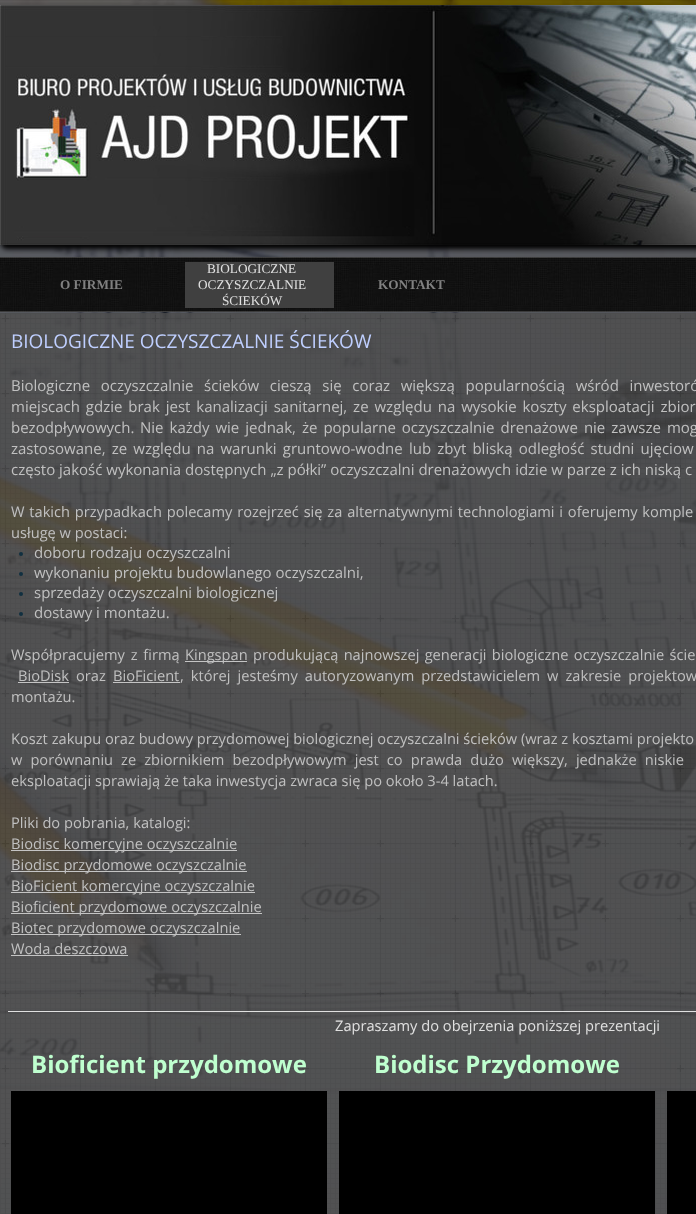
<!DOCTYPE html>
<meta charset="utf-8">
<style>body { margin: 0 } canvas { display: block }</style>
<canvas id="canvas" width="696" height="1214"></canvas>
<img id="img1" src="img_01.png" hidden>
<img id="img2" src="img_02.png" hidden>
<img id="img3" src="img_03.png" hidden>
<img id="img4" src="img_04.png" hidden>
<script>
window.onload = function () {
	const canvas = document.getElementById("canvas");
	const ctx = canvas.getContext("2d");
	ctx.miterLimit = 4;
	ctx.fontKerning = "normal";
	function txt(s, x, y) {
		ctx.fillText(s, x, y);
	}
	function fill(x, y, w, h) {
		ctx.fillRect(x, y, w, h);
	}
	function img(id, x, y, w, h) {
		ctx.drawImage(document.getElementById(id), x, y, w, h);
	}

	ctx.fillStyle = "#FFFFFF";
	fill(0, 0, 696, 1214);
	img("img1", 0, 0, 696, 1214);
	ctx.fillStyle = "rgba(0, 0, 0, 0.6)";
	fill(0, 0, 696, 313);
	img("img2", 0, 5, 696, 249);
	img("img3", 0, 257, 696, 55);
	ctx.fillStyle = "#404040";
	fill(185, 262, 149, 46);
	img("img4", 0, 313, 696, 901);
	ctx.fillStyle = "#113040";
	ctx.beginPath();
	ctx.arc(21, 554, 2, 0, Math.PI * 2);
	ctx.fill();
	ctx.beginPath();
	ctx.arc(21, 574, 2, 0, Math.PI * 2);
	ctx.fill();
	ctx.beginPath();
	ctx.arc(21, 594, 2, 0, Math.PI * 2);
	ctx.fill();
	ctx.beginPath();
	ctx.arc(21, 614, 2, 0, Math.PI * 2);
	ctx.fill();
	ctx.fillStyle = "#C4C4C4";
	fill(185, 661, 62, 1);
	fill(18, 682, 51, 1);
	fill(113, 682, 67, 1);
	fill(11, 850, 226, 1);
	fill(11, 871, 236, 1);
	fill(11, 892, 244, 1);
	fill(11, 913, 251, 1);
	fill(11, 934, 230, 1);
	fill(11, 955, 117, 1);
	ctx.fillStyle = "#E0E0E0";
	fill(8, 1011, 688, 1);
	ctx.fillStyle = "#000000";
	fill(11, 1091, 316, 123);
	fill(339, 1091, 316, 123);
	fill(667, 1091, 29, 123);
	ctx.font = "bold 13.25px Liberation Serif";
	ctx.fillStyle = "#808080";
	txt("O FIRMIE", 60, 289);
	ctx.font = "13.25px Liberation Serif";
	ctx.fillStyle = "#E0E0E0";
	txt("BIOLOGICZNE", 207, 273);
	txt("OCZYSZCZALNIE", 198, 289);
	txt("ŚCIEKÓW", 222, 305);
	ctx.font = "bold 13.25px Liberation Serif";
	ctx.fillStyle = "#808080";
	txt("KONTAKT", 378, 289);
	ctx.font = "19px Open Sans";
	ctx.fillStyle = "#BFCFFF";
	txt("BIOLOGICZNE OCZYSZCZALNIE ŚCIEKÓW", 11, 348);
	ctx.wordSpacing = "6.75px";
	ctx.font = "15px Open Sans";
	ctx.fillStyle = "#C0C0C0";
	txt("Biologiczne oczyszczalnie ścieków cieszą się coraz większą popularnością wśród inwestoró", 11, 391);
	ctx.wordSpacing = "2px";
	txt("miejscach gdzie brak jest kanalizacji sanitarnej, ze względu na wysokie koszty eksploatacji zbior", 11, 412);
	ctx.wordSpacing = "0px";
	txt("bezodpływowych.", 11, 433);
	ctx.wordSpacing = "2.1px";
	txt("Nie każdy wie jednak, że popularne oczyszczalnie drenażowe nie zawsze mog", 140, 433);
	ctx.wordSpacing = "2.25px";
	txt("zastosowane, ze względu na warunki gruntowo-wodne lub zbyt bliską odległość studni ujęciow", 11, 454);
	ctx.wordSpacing = "0px";
	txt("często jakość wykonania dostępnych „z półki” oczyszczalni drenażowych idzie w parze z ich niską c", 11, 475);
	ctx.wordSpacing = "1px";
	ctx.font = "14.65px Open Sans";
	txt("W takich przypadkach polecamy rozejrzeć się za alternatywnymi technologiami i oferujemy komple", 11, 517);
	ctx.wordSpacing = "0px";
	txt("usługę w postaci:", 11, 538);
	ctx.font = "15px Open Sans";
	txt("doboru rodzaju oczyszczalni", 34, 558);
	txt("wykonaniu projektu budowlanego oczyszczalni,", 34, 578);
	txt("sprzedaży oczyszczalni biologicznej", 34, 598);
	txt("dostawy i montażu.", 34, 618);
	ctx.wordSpacing = "2px";
	ctx.font = "14.65px Open Sans";
	txt("Współpracujemy z firmą", 11, 660);
	ctx.wordSpacing = "0px";
	txt("Kingspan", 185, 660);
	ctx.wordSpacing = "1.5px";
	txt("produkującą najnowszej generacji biologiczne oczyszczalnie ście", 253, 660);
	ctx.wordSpacing = "0px";
	txt("BioDisk", 18, 681);
	txt("oraz", 76, 681);
	txt("BioFicient", 113, 681);
	ctx.wordSpacing = "3.25px";
	txt(", której jesteśmy autoryzowanym przedstawicielem w zakresie projektow", 180, 681);
	ctx.wordSpacing = "0px";
	txt("montażu.", 11, 702);
	txt("Koszt zakupu oraz budowy przydomowej biologicznej oczyszczalni ścieków (wraz z kosztami projekto", 11, 744);
	ctx.wordSpacing = "4.25px";
	txt("w porównaniu ze zbiornikiem bezodpływowym jest co prawda dużo większy, jednakże niskie", 11, 765);
	ctx.wordSpacing = "0px";
	txt("eksploatacji sprawiają że taka inwestycja zwraca się po około 3-4 latach.", 11, 786);
	txt("Pliki do pobrania, katalogi:", 11, 828);
	txt("Biodisc komercyjne oczyszczalnie", 11, 849);
	txt("Biodisc przydomowe oczyszczalnie", 11, 870);
	txt("BioFicient komercyjne oczyszczalnie", 11, 891);
	txt("Bioficient przydomowe oczyszczalnie", 11, 912);
	txt("Biotec przydomowe oczyszczalnie", 11, 933);
	txt("Woda deszczowa", 11, 954);
	ctx.fillStyle = "#E0E0E0";
	txt("Zapraszamy do obejrzenia poniższej prezentacji", 335, 1031);
	ctx.font = "bold 24px Open Sans";
	ctx.fillStyle = "#BFFFCF";
	txt("Bioficient przydomowe", 31, 1073);
	txt("Biodisc Przydomowe", 374, 1073);
};
</script>
